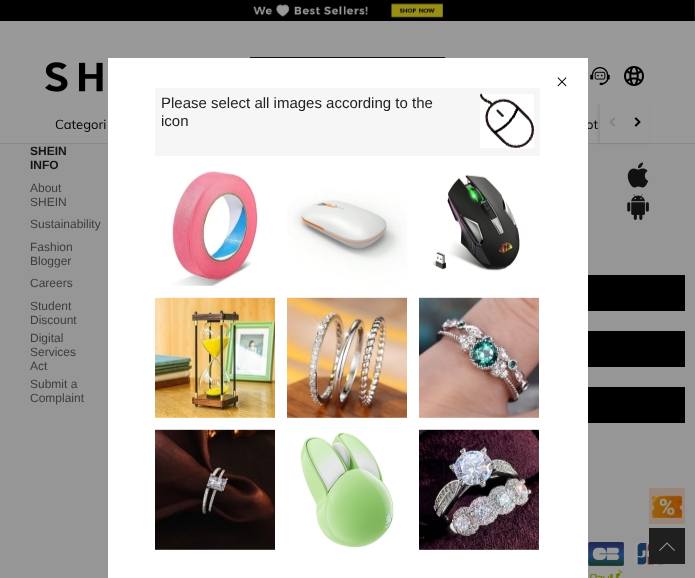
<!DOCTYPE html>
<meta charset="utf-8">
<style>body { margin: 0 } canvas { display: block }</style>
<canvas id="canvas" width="695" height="578"></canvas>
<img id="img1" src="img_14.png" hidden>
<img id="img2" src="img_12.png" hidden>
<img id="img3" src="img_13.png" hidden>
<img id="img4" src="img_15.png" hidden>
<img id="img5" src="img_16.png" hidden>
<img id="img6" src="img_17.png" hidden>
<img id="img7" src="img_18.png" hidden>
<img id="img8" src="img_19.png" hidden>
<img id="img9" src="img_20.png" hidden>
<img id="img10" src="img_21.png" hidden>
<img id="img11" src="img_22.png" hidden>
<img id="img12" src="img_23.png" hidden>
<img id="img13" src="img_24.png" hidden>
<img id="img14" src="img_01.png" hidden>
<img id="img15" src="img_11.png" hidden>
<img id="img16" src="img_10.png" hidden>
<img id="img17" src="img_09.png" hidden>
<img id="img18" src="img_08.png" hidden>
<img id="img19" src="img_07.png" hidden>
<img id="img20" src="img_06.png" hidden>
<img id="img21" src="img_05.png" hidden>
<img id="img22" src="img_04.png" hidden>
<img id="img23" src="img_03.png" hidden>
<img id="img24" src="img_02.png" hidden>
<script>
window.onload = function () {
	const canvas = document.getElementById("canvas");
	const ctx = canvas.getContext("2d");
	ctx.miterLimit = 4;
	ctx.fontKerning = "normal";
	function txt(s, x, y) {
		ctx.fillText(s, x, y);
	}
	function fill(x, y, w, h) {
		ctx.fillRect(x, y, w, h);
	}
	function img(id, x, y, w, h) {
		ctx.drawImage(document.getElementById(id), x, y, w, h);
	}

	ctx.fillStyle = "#999999";
	fill(0, 0, 695, 578);
	ctx.fillStyle = "#141414";
	fill(250, 57, 195, 1);
	img("img1", 590, 67, 20, 19);
	ctx.fillStyle = "#898989";
	fill(0, 143, 695, 1);
	ctx.fillStyle = "#969696";
	fill(0, 144, 695, 434);
	ctx.fillStyle = "#000000";
	fill(588, 275, 97, 36);
	fill(588, 331, 97, 36);
	fill(588, 387, 97, 36);
	ctx.fillStyle = "rgba(0, 0, 0, 0.3)";
	ctx.filter = "blur(0.5px)";
	ctx.beginPath();
	ctx.rect(108, 58, 480, 462);
	ctx.fill();
	ctx.filter = "none";
	img("img2", 0, 0, 695, 21);
	ctx.fillStyle = "rgba(0, 0, 0, 0.08)";
	ctx.filter = "blur(1.5px)";
	ctx.beginPath();
	ctx.rect(598, 104, 50, 39);
	ctx.fill();
	ctx.filter = "none";
	ctx.fillStyle = "#999999";
	fill(598, 103, 50, 1);
	img("img3", 45, 62, 58, 30);
	img("img4", 624, 66, 20, 20);
	fill(600, 104, 49, 39);
	img("img5", 609, 117, 7, 10);
	img("img6", 634, 117, 7, 10);
	img("img7", 627, 162, 22, 26);
	img("img8", 627, 194, 22, 26);
	img("img9", 588, 542, 36, 24);
	img("img10", 634, 542, 36, 24);
	img("img11", 588, 566, 36, 12);
	ctx.fillStyle = "#998579";
	fill(649, 488, 36, 36);
	img("img12", 652, 495, 30, 23);
	ctx.fillStyle = "#1F1F1F";
	fill(649, 528, 36, 36);
	img("img13", 659, 542, 16, 9);
	ctx.font = "13px Muli";
	ctx.fillStyle = "#000000";
	txt("Categori", 55, 129);
	txt("ot", 586, 129);
	ctx.fillStyle = "#FFFFFF";
	fill(108, 58, 480, 520);
	img("img14", 557, 77, 10, 10);
	img("img15", 419, 429, 120, 121);
	img("img16", 300, 431, 95, 118);
	img("img17", 155, 429, 120, 121);
	img("img18", 419, 297, 120, 121);
	img("img19", 287, 297, 120, 121);
	img("img20", 155, 297, 120, 121);
	img("img21", 423, 174, 97, 112);
	img("img22", 287, 189, 120, 97);
	img("img23", 168, 171, 90, 115);
	ctx.fillStyle = "#F6F6F6";
	fill(155, 88, 385, 68);
	ctx.fillStyle = "#FFFFFF";
	fill(480, 94, 54, 54);
	img("img24", 480, 93, 54, 55);
	ctx.font = "15px Liberation Sans";
	ctx.fillStyle = "#222222";
	txt("icon", 161, 126);
	txt("Please select all images according to the", 161, 108);
	ctx.font = "bold 12px Liberation Sans";
	ctx.fillStyle = "#141414";
	txt("SHEIN", 30, 155);
	txt("INFO", 30, 169);
	ctx.font = "12px Liberation Sans";
	ctx.fillStyle = "#3D3D3D";
	txt("About", 30, 192);
	txt("SHEIN", 30, 206);
	txt("Sustainability", 30, 228);
	txt("Fashion", 30, 251);
	txt("Blogger", 30, 265);
	txt("Careers", 30, 287);
	txt("Student", 30, 310);
	txt("Discount", 30, 324);
	txt("Digital", 30, 342);
	txt("Services", 30, 356);
	txt("Act", 30, 370);
	txt("Submit a", 30, 388);
	txt("Complaint", 30, 402);
};
</script>
